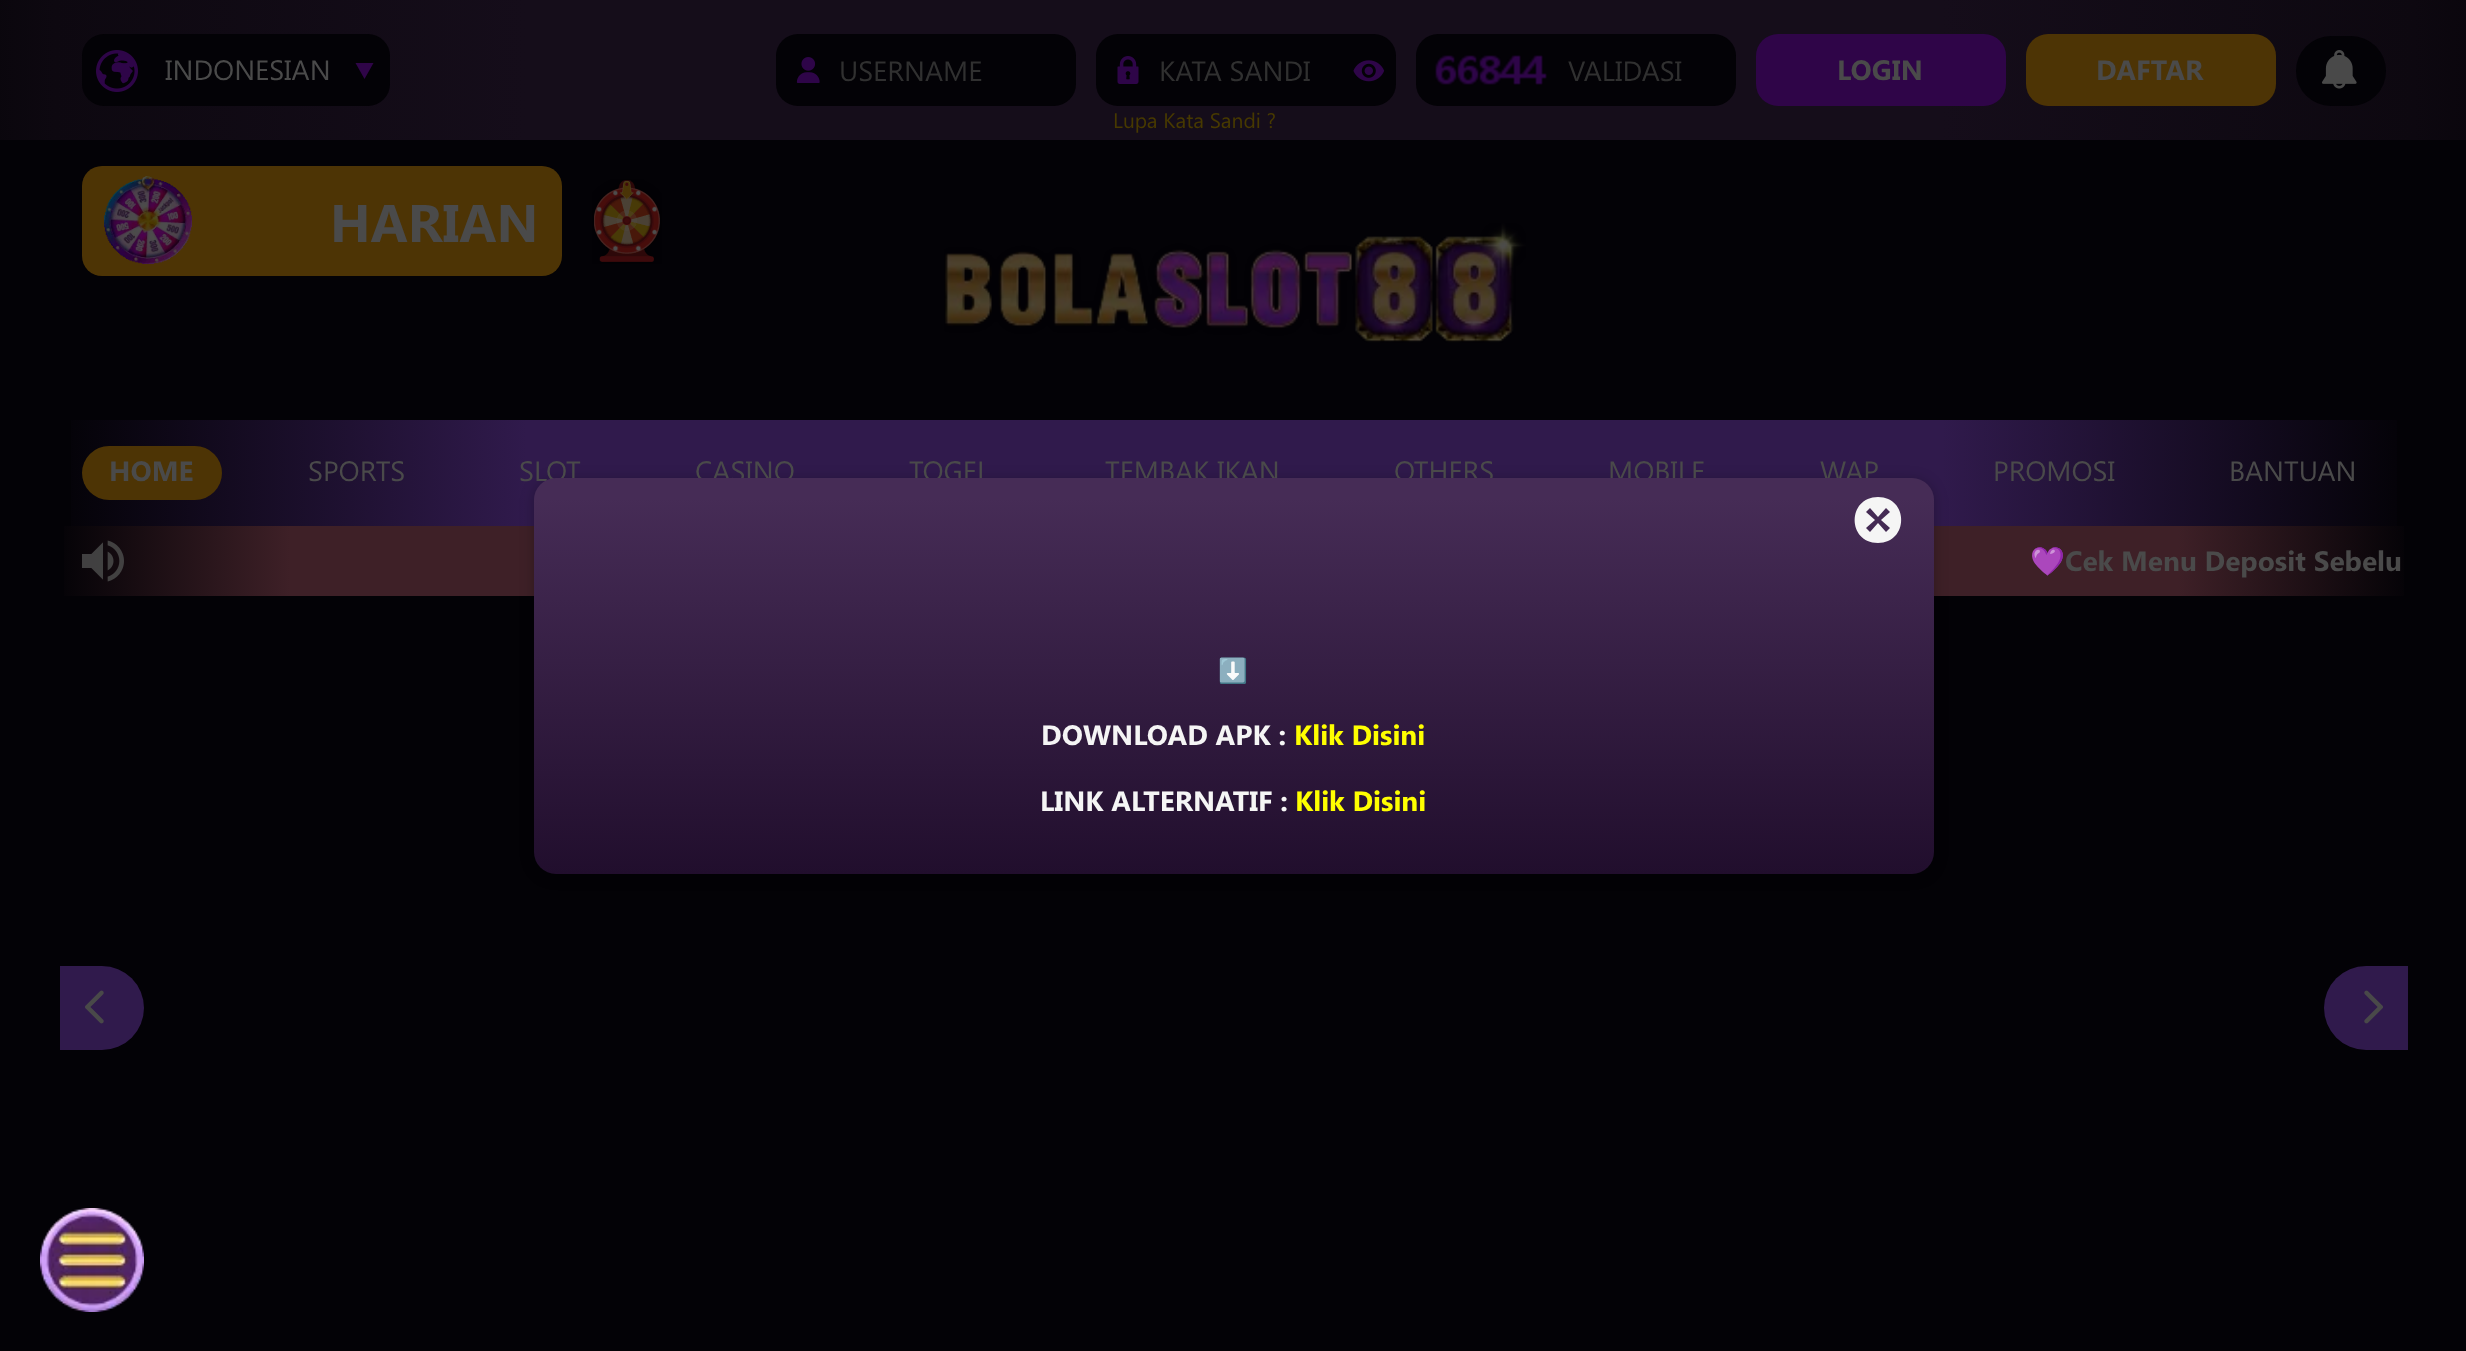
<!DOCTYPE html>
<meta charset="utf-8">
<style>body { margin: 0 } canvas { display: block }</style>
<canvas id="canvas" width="2466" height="1351"></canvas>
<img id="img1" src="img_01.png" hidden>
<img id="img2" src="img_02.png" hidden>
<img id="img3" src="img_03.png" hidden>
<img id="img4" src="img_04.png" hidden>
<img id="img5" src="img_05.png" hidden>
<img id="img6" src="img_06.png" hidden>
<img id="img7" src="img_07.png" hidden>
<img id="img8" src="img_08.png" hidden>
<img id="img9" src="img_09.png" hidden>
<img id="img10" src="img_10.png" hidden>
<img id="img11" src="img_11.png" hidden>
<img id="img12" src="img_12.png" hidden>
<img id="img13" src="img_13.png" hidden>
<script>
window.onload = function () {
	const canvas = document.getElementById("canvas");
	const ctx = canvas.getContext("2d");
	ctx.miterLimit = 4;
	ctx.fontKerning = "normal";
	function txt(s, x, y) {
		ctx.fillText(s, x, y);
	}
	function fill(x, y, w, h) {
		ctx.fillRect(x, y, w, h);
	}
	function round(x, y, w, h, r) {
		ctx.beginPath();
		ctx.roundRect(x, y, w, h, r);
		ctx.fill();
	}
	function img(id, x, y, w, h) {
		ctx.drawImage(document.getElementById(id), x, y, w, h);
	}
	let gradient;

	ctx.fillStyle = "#030206";
	fill(0, 0, 2466, 1351);
	gradient = ctx.createLinearGradient(54, 70, 2414, 70);
	gradient.addColorStop(0, "#0D0810");
	gradient.addColorStop(0.2, "#150D1A");
	gradient.addColorStop(0.8, "#150D1A");
	gradient.addColorStop(1, "#0D0810");
	ctx.fillStyle = gradient;
	fill(54, 0, 2360, 140);
	gradient = ctx.createLinearGradient(-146, 70, 54, 70);
	gradient.addColorStop(0, "#030206");
	gradient.addColorStop(1, "#0D0810");
	ctx.fillStyle = gradient;
	fill(0, 0, 54, 140);
	ctx.fillStyle = "#030206";
	round(82, 34, 308, 72, 22);
	img("img1", 96, 50, 42, 42);
	ctx.fillStyle = "#2F0548";
	ctx.beginPath();
	ctx.moveTo(364.5, 79);
	ctx.lineTo(373.5, 63);
	ctx.lineTo(355.5, 63);
	ctx.closePath();
	ctx.fill();
	ctx.fillStyle = "#030206";
	round(776, 34, 300, 72, 22);
	img("img2", 796, 57, 24, 26);
	round(1096, 34, 300, 72, 22);
	img("img3", 1117, 56, 22, 28);
	img("img4", 1353, 60, 32, 22);
	round(1416, 34, 320, 72, 22);
	img("img5", 1435, 55, 112, 30);
	ctx.fillStyle = "#2F0548";
	round(1756, 34, 250, 72, 22);
	ctx.fillStyle = "#4D3405";
	round(2026, 34, 250, 72, 22);
	ctx.fillStyle = "#030206";
	round(2296, 36, 90, 70, 35);
	img("img6", 2321, 50, 36, 39);
	gradient = ctx.createLinearGradient(2414, 70, 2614, 70);
	gradient.addColorStop(0, "#0D0810");
	gradient.addColorStop(1, "#030206");
	ctx.fillStyle = gradient;
	fill(2414, 0, 52, 140);
	ctx.fillStyle = "#4D3405";
	round(82, 166, 480, 110, 20);
	img("img7", 104, 176, 88, 88);
	img("img8", 592, 179, 70, 85);
	img("img9", 944, 223, 582, 120);
	gradient = ctx.createLinearGradient(2414, 473, 54, 473);
	gradient.addColorStop(0, "#030206");
	gradient.addColorStop(0.2, "#301A4C");
	gradient.addColorStop(0.8, "#301A4C");
	gradient.addColorStop(1, "#030206");
	ctx.fillStyle = gradient;
	fill(71, 420, 2326, 106);
	ctx.fillStyle = "#4D3405";
	round(82, 446, 140, 54, 27);
	gradient = ctx.createLinearGradient(54, 561, 2414, 561);
	gradient.addColorStop(0, "#030206");
	gradient.addColorStop(0.1, "#3E2027");
	gradient.addColorStop(0.9, "#3E2027");
	gradient.addColorStop(1, "#030206");
	ctx.fillStyle = gradient;
	fill(64, 526, 2340, 70);
	img("img10", 82, 540, 42, 42);
	ctx.fillStyle = "#301A4C";
	ctx.beginPath();
	ctx.roundRect(60, 966, 84, 84, [0, 42, 42, 0]);
	ctx.fill();
	img("img11", 85, 990, 19, 34);
	ctx.beginPath();
	ctx.roundRect(2324, 966, 84, 84, [42, 0, 0, 42]);
	ctx.fill();
	img("img12", 2364, 990, 19, 34);
	img("img13", 40, 1208, 104, 104);
	ctx.fillStyle = "rgba(0, 0, 0, 0.25)";
	ctx.filter = "blur(7px)";
	ctx.beginPath();
	ctx.roundRect(534, 480, 1400, 396, 22);
	ctx.fill();
	ctx.filter = "none";
	ctx.font = "28px Segoe UI";
	ctx.fillStyle = "#4A4A4A";
	txt("INDONESIAN", 165, 80);
	ctx.fillStyle = "#303030";
	txt("USERNAME", 839, 81);
	txt("KATA SANDI", 1159, 81);
	ctx.font = "21px Segoe UI";
	ctx.fillStyle = "#473900";
	txt("Lupa Kata Sandi ?", 1113, 128);
	ctx.font = "28px Segoe UI";
	ctx.fillStyle = "#303030";
	txt("VALIDASI", 1568, 81);
	ctx.font = "bold 28px Segoe UI";
	ctx.fillStyle = "#4A4A4A";
	txt("LOGIN", 1837, 80);
	txt("DAFTAR", 2096, 80);
	ctx.font = "bold 53px Segoe UI";
	txt("HARIAN", 330, 242);
	ctx.font = "bold 28px Segoe UI";
	txt("HOME", 109, 481);
	ctx.font = "28px Segoe UI";
	txt("SPORTS", 308, 481);
	txt("SLOT", 519, 481);
	txt("CASINO", 695, 481);
	txt("TOGEL", 909, 481);
	txt("TEMBAK IKAN", 1105, 481);
	txt("OTHERS", 1394, 481);
	txt("MOBILE", 1608, 481);
	txt("WAP", 1820, 481);
	txt("PROMOSI", 1993, 481);
	txt("BANTUAN", 2229, 481);
	ctx.font = "bold 28px Noto Color Emoji";
	txt("💜", 2030, 571);
	ctx.font = "bold 28px Segoe UI";
	txt("Cek Menu Deposit Sebelu", 2065, 571);
	gradient = ctx.createLinearGradient(1234, 478, 1234, 874);
	gradient.addColorStop(0.05, "#462C56");
	gradient.addColorStop(1, "#210E2D");
	ctx.fillStyle = gradient;
	round(534, 478, 1400, 396, 22);
	ctx.fillStyle = "#F5F5F5";
	ctx.beginPath();
	ctx.moveTo(1878, 497);
	ctx.bezierCurveTo(1847, 497, 1847, 543, 1878, 543);
	ctx.bezierCurveTo(1909, 543, 1909, 497, 1878, 497);
	ctx.closePath();
	ctx.moveTo(1890, 528);
	ctx.lineTo(1886, 532);
	ctx.lineTo(1878, 523);
	ctx.lineTo(1870, 532);
	ctx.lineTo(1866, 528);
	ctx.lineTo(1875, 520);
	ctx.lineTo(1866, 512);
	ctx.lineTo(1870, 508);
	ctx.lineTo(1878, 517);
	ctx.lineTo(1886, 508);
	ctx.lineTo(1890, 512);
	ctx.lineTo(1881, 520);
	ctx.closePath();
	ctx.fill();
	ctx.font = "bold 24px Noto Color Emoji";
	txt("⬇️", 1218, 679);
	ctx.font = "bold 28px Segoe UI";
	txt("DOWNLOAD APK :", 1041, 745);
	ctx.fillStyle = "#FFFF00";
	txt("Klik Disini", 1294, 745);
	ctx.fillStyle = "#F5F5F5";
	txt("LINK ALTERNATIF :", 1040, 811);
	ctx.fillStyle = "#FFFF00";
	txt("Klik Disini", 1295, 811);
};
</script>
